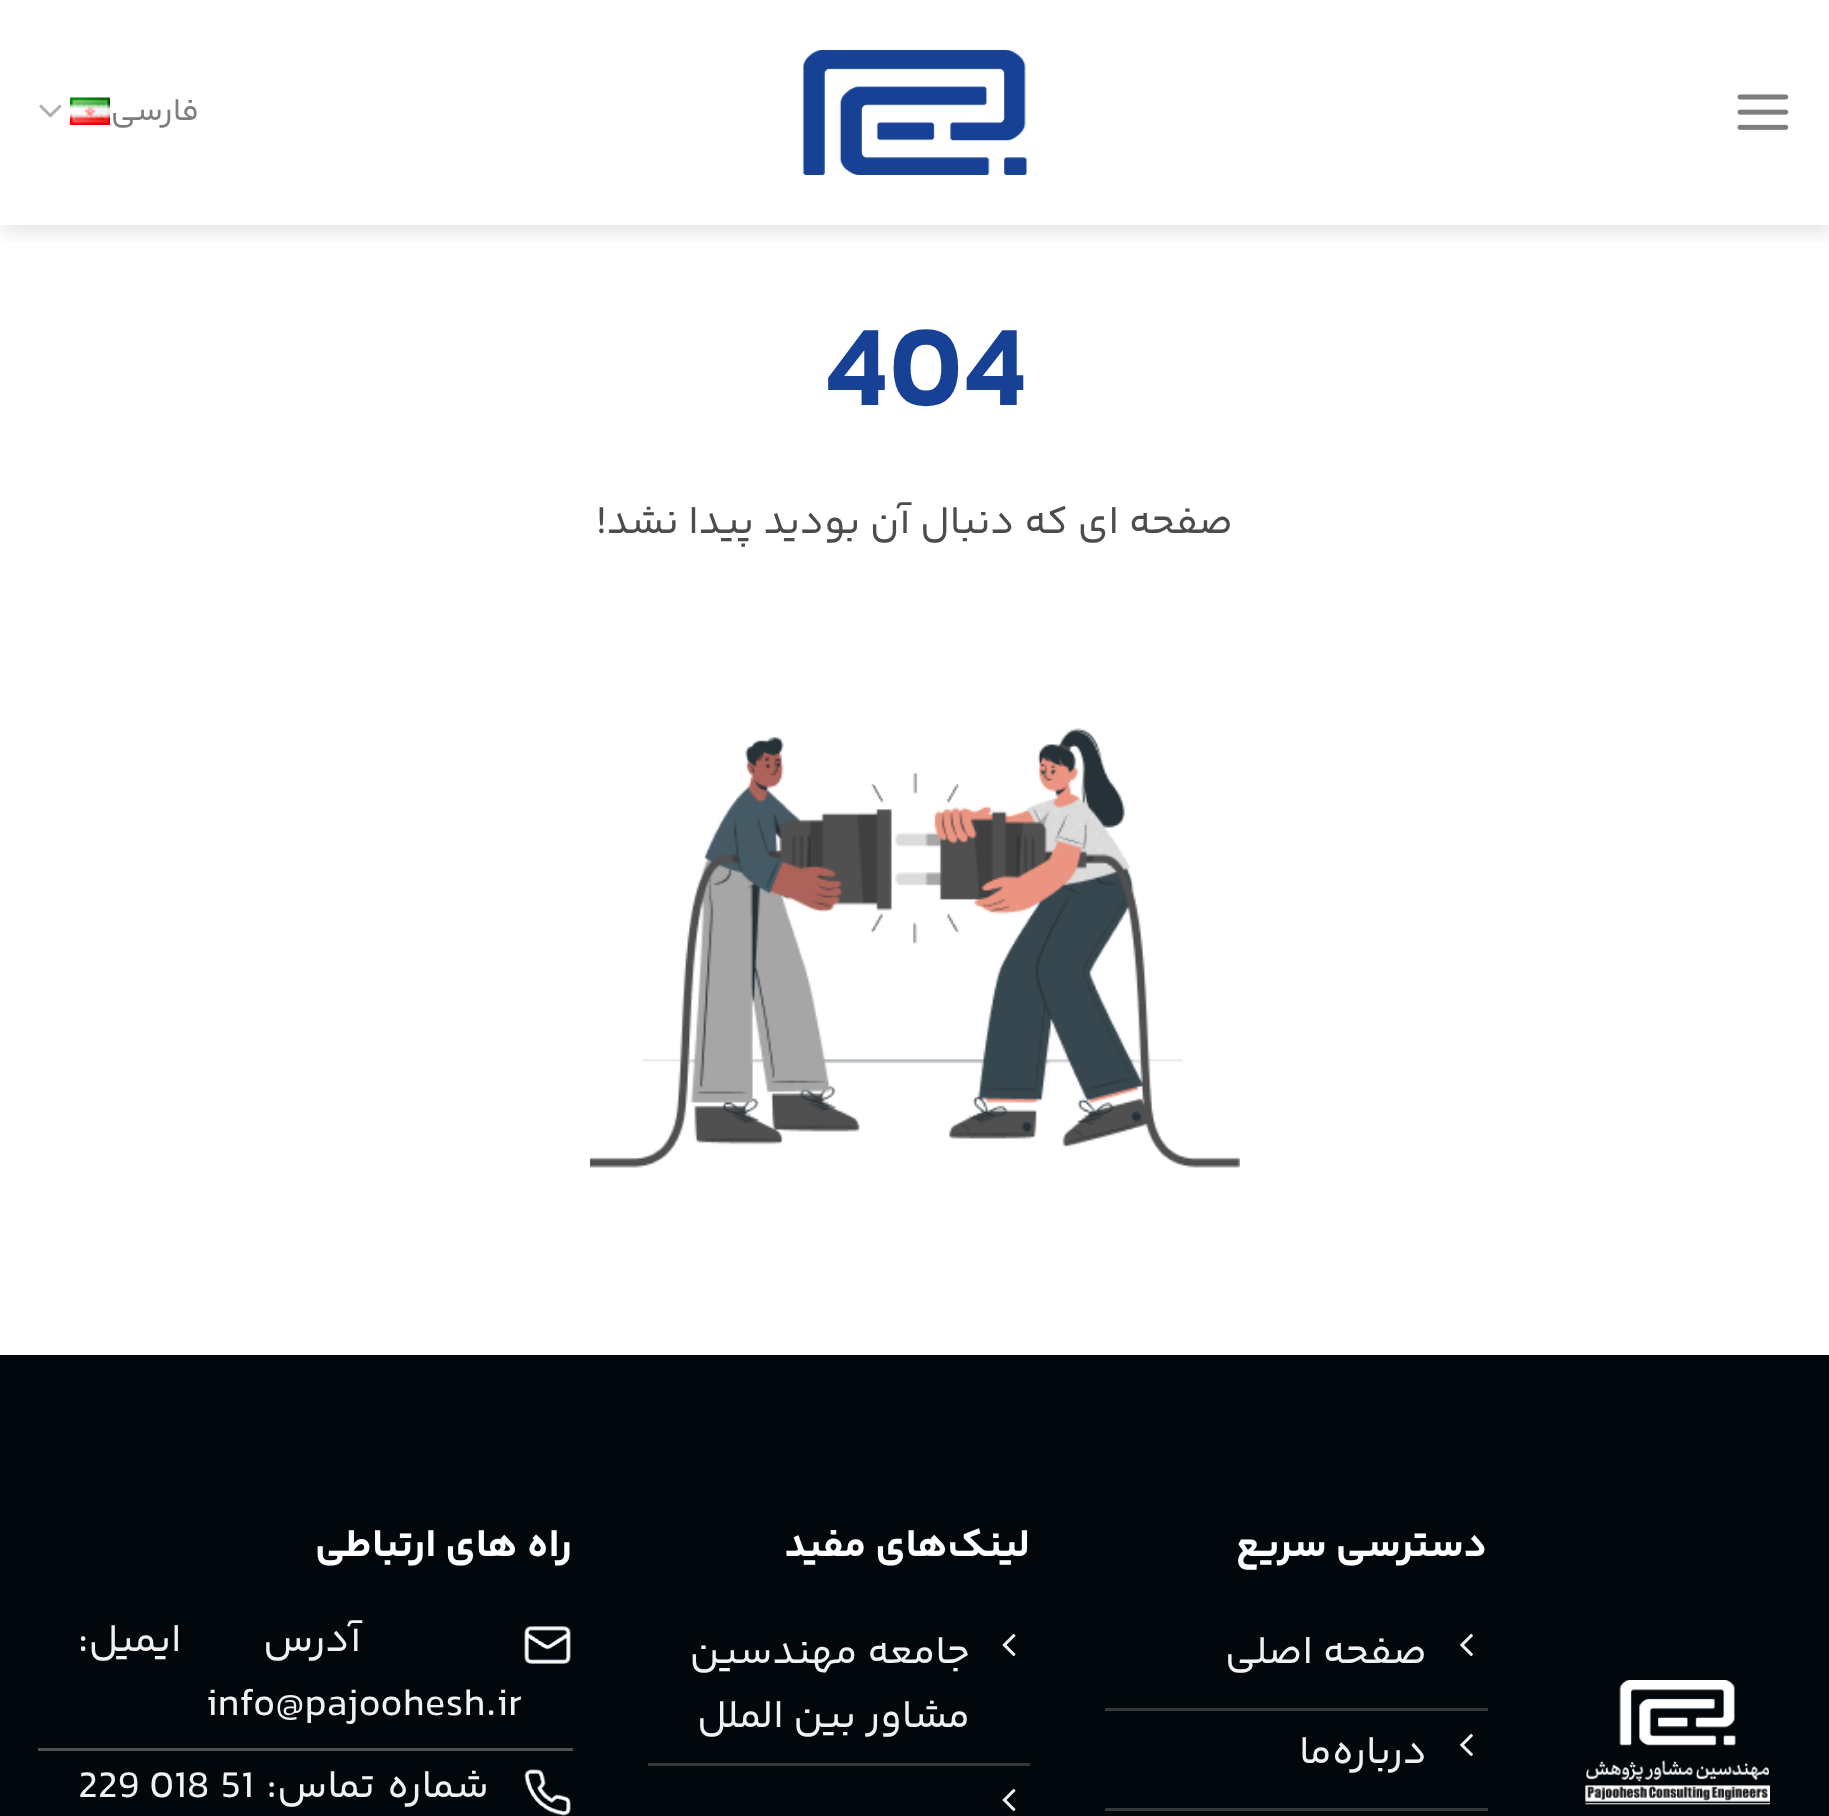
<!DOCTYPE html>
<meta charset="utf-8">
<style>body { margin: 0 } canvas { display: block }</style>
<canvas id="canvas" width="1829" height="1816"></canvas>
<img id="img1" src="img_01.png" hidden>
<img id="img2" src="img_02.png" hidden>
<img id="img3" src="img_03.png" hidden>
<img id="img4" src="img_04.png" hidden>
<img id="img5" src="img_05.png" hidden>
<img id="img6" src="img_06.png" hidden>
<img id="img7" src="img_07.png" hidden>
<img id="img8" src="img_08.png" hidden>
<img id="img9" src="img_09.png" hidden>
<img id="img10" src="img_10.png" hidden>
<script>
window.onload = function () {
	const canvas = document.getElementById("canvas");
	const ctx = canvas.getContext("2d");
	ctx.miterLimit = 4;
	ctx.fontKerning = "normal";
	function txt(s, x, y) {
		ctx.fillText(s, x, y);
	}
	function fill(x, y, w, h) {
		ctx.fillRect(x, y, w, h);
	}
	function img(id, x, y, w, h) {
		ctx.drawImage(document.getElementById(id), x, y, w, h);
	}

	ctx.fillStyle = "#FFFFFF";
	fill(0, 0, 1829, 1816);
	ctx.save();
	ctx.beginPath();
	ctx.rect(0, 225, 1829, 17);
	ctx.clip();
	ctx.fillStyle = "rgba(0, 0, 0, 0.15)";
	ctx.filter = "blur(12.5px)";
	ctx.beginPath();
	ctx.rect(3, 3, 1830, 225);
	ctx.fill();
	ctx.filter = "none";
	ctx.restore();
	img("img1", 1737, 94, 52, 36);
	img("img2", 802, 50, 225, 125);
	img("img3", 70, 97, 40, 28);
	img("img4", 39, 104, 23, 14);
	img("img5", 590, 728, 650, 440);
	ctx.fillStyle = "#01070A";
	fill(0, 1355, 1829, 461);
	img("img6", 1585, 1680, 185, 125);
	ctx.fillStyle = "#34393B";
	fill(1105, 1708, 383, 3);
	img("img7", 1460, 1633, 13, 24);
	fill(1105, 1808, 383, 3);
	img("img7", 1460, 1733, 13, 24);
	fill(648, 1763, 382, 3);
	img("img8", 1002, 1633, 14, 24);
	img("img8", 1002, 1788, 14, 24);
	img("img9", 524, 1626, 47, 38);
	ctx.fillStyle = "#4D5154";
	fill(38, 1748, 535, 3);
	img("img10", 524, 1769, 47, 47);
	ctx.direction = "rtl";
	ctx.font = "32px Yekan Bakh";
	ctx.fillStyle = "#7D7D7D";
	txt("فارسی", 199, 120);
	ctx.direction = "ltr";
	ctx.font = "bold 122px Yekan Bakh";
	ctx.fillStyle = "#164194";
	txt("404", 825, 405);
	ctx.direction = "rtl";
	ctx.font = "40px Yekan Bakh";
	ctx.fillStyle = "#4C4C4C";
	txt("صفحه ای که دنبال آن بودید پیدا نشد!", 1233, 533);
	ctx.font = "bold 40px Yekan Bakh";
	ctx.fillStyle = "#FFFFFF";
	txt("دسترسی سریع", 1487, 1556);
	ctx.font = "40px Yekan Bakh";
	ctx.fillStyle = "#F1F1F1";
	txt("صفحه اصلی", 1427, 1663);
	txt("درباره‌ما", 1427, 1763);
	ctx.font = "bold 40px Yekan Bakh";
	ctx.fillStyle = "#FFFFFF";
	txt("لینک‌های مفید", 1030, 1556);
	ctx.font = "40px Yekan Bakh";
	ctx.fillStyle = "#F1F1F1";
	txt("جامعه مهندسین", 970, 1663);
	txt("مشاور بین الملل", 970, 1727);
	ctx.font = "bold 40px Yekan Bakh";
	ctx.fillStyle = "#FFFFFF";
	txt("راه های ارتباطی", 572, 1556);
	ctx.wordSpacing = "72px";
	ctx.font = "40px Yekan Bakh";
	ctx.fillStyle = "#F1F1F1";
	txt("آدرس ایمیل:", 361, 1651);
	ctx.wordSpacing = "0px";
	ctx.direction = "ltr";
	txt("info@pajoohesh.ir", 206, 1715);
	ctx.wordSpacing = "3px";
	ctx.direction = "rtl";
	txt("شماره تماس:", 489, 1797);
	ctx.wordSpacing = "0px";
	ctx.direction = "ltr";
	txt("51", 221, 1797);
	txt("229 018", 78, 1797);
};
</script>
